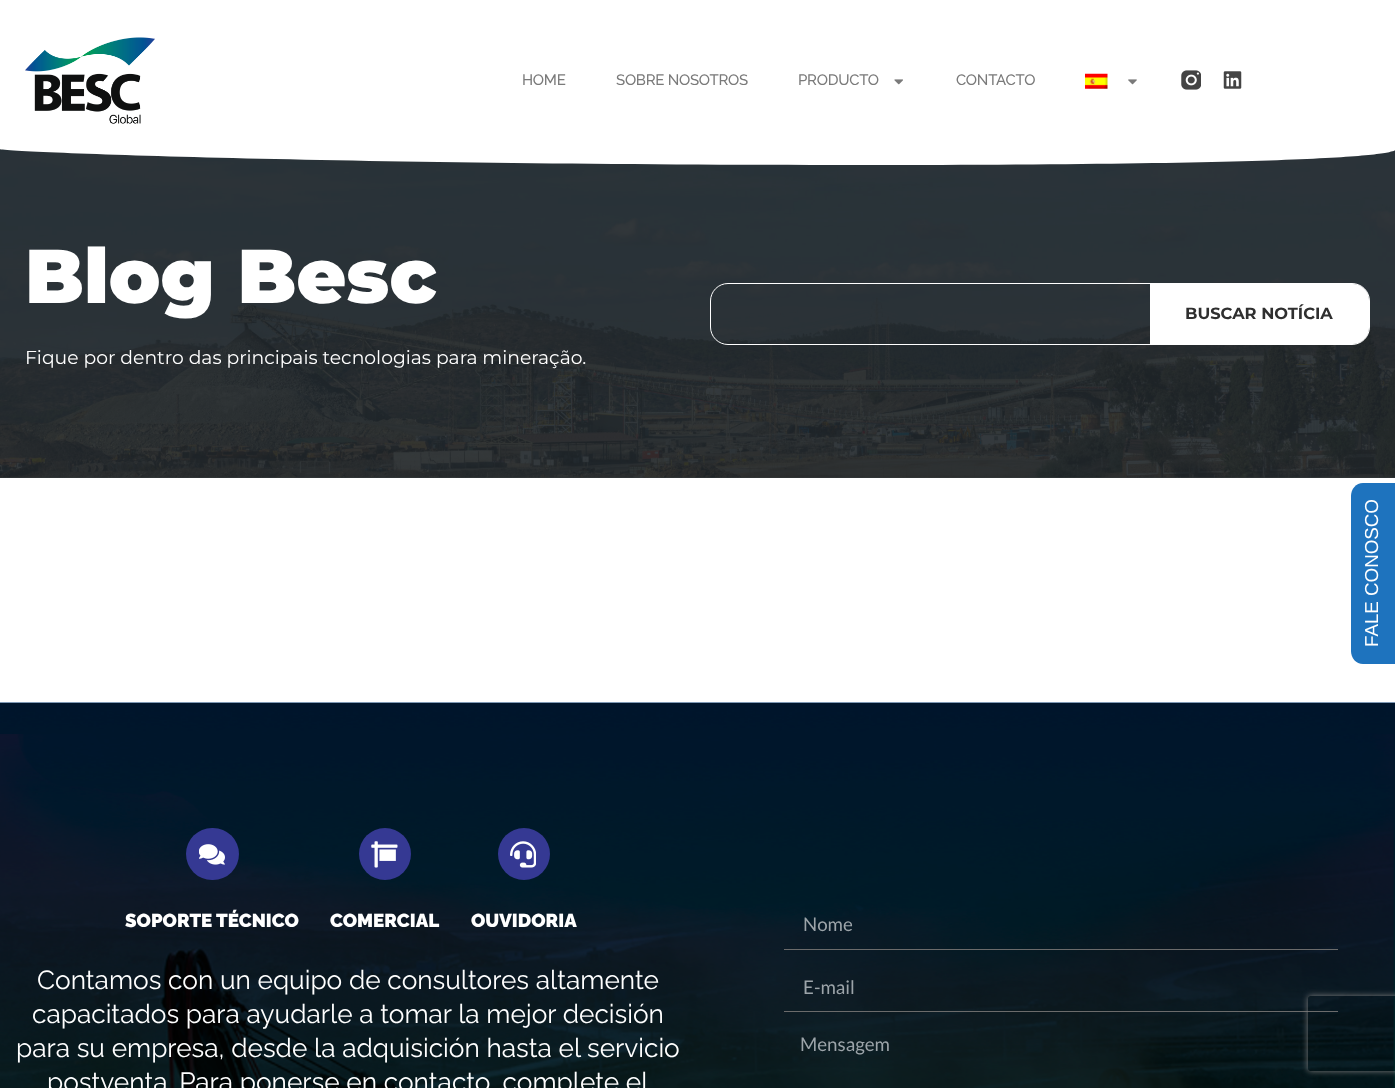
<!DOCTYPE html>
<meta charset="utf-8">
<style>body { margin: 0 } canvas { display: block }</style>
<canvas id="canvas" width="1395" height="1088"></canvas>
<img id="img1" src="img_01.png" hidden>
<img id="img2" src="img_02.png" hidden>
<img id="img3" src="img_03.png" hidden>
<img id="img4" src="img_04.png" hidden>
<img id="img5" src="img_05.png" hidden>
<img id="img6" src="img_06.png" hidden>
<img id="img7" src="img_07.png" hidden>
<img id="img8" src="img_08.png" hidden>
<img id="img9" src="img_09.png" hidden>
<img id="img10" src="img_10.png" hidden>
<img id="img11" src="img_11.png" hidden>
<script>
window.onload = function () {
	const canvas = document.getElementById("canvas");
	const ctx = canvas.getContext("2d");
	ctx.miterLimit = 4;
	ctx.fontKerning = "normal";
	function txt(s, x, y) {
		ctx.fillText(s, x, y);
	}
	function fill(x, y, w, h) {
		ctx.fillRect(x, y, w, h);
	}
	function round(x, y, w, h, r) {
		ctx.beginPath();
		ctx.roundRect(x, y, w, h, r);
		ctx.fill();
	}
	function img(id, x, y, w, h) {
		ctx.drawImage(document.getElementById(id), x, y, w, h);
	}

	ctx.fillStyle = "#FFFFFF";
	fill(0, 0, 1395, 1088);
	ctx.fillStyle = "#343A3D";
	fill(0, 477, 1395, 1);
	img("img1", 25, 37, 130, 87);
	img("img2", 894, 79, 9, 6);
	img("img3", 1085, 73, 23, 16);
	img("img4", 1128, 79, 9, 6);
	img("img5", 1181, 70, 20, 20);
	img("img6", 1223, 71, 19, 18);
	img("img7", 0, 149, 1395, 329);
	ctx.fillStyle = "#FFFFFF";
	ctx.beginPath();
	ctx.moveTo(-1, 148);
	ctx.lineTo(-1, 149);
	ctx.bezierCurveTo(-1, 152, 335, 165, 858, 165);
	ctx.bezierCurveTo(1382, 165, 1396, 152, 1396, 149);
	ctx.lineTo(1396, 148);
	ctx.closePath();
	ctx.fill();
	ctx.beginPath();
	ctx.roundRect(710.5, 283.5, 659, 61, 17.5);
	ctx.strokeStyle = "#FFFFFF";
	ctx.stroke();
	ctx.beginPath();
	ctx.roundRect(1150, 284, 219, 60, [0, 16, 16, 0]);
	ctx.fill();
	ctx.fillStyle = "#1E73BE";
	ctx.beginPath();
	ctx.moveTo(1351, 651);
	ctx.lineTo(1351, 496);
	ctx.bezierCurveTo(1351, 489, 1356, 483, 1363, 483);
	ctx.lineTo(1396, 483);
	ctx.lineTo(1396, 664);
	ctx.lineTo(1363, 664);
	ctx.bezierCurveTo(1356, 664, 1351, 658, 1351, 651);
	ctx.closePath();
	ctx.fill();
	img("img8", 0, 702, 1395, 386);
	ctx.fillStyle = "#353993";
	round(186, 828, 53, 52, 26);
	img("img9", 199, 844, 26, 21);
	ctx.beginPath();
	ctx.arc(385, 854, 26, 0, Math.PI * 2);
	ctx.fill();
	img("img10", 371, 841, 27, 27);
	ctx.beginPath();
	ctx.arc(524, 854, 26, 0, Math.PI * 2);
	ctx.fill();
	img("img11", 510, 841, 26, 27);
	ctx.fillStyle = "#6B6B6B";
	fill(784, 949, 554, 1);
	fill(784, 1011, 554, 1);
	ctx.save();
	ctx.beginPath();
	ctx.moveTo(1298, 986);
	ctx.lineTo(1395, 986);
	ctx.lineTo(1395, 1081);
	ctx.lineTo(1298, 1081);
	ctx.closePath();
	ctx.moveTo(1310.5, 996);
	ctx.lineTo(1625.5, 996);
	ctx.bezierCurveTo(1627, 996, 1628, 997, 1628, 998.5);
	ctx.lineTo(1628, 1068.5);
	ctx.bezierCurveTo(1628, 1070, 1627, 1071, 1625.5, 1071);
	ctx.lineTo(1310.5, 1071);
	ctx.bezierCurveTo(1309, 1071, 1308, 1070, 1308, 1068.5);
	ctx.lineTo(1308, 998.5);
	ctx.bezierCurveTo(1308, 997, 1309, 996, 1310.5, 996);
	ctx.closePath();
	ctx.clip("evenodd");
	ctx.fillStyle = "#808080";
	ctx.filter = "blur(3px)";
	ctx.beginPath();
	ctx.roundRect(1308, 996, 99, 75, 2.5);
	ctx.fill();
	ctx.filter = "none";
	ctx.restore();
	ctx.letterSpacing = "-0.25px";
	ctx.font = "500 15px Raleway";
	ctx.fillStyle = "#7A7A7A";
	txt("HOME", 522, 85);
	txt("SOBRE NOSOTROS", 616, 85);
	txt("PRODUCTO", 798, 85);
	txt("CONTACTO", 956, 85);
	ctx.letterSpacing = "0px";
	ctx.font = "900 76.25px Montserrat";
	ctx.fillStyle = "#FFFFFF";
	txt("Blog Besc", 25, 303);
	ctx.font = "18.75px Montserrat";
	txt("Fique por dentro das principais tecnologias para mineração.", 25, 364);
	ctx.font = "bold 16.25px Montserrat";
	ctx.fillStyle = "#2F2F2F";
	txt("BUSCAR NOTÍCIA", 1185, 319);
	ctx.font = "18.75px Liberation Sans";
	ctx.fillStyle = "#FFFFFF";
	ctx.save();
	ctx.translate(1378, 647);
	ctx.rotate(-90 * Math.PI / 180);
	ctx.fillText("FALE CONOSCO", 0, 0);
	ctx.restore();
	ctx.font = "900 18.75px Raleway";
	txt("SOPORTE TÉCNICO", 125, 927);
	txt("COMERCIAL", 330, 927);
	txt("OUVIDORIA", 471, 927);
	ctx.font = "26.25px Raleway";
	txt("Contamos con un equipo de consultores altamente", 37, 989);
	txt("capacitados para ayudarle a tomar la mejor decisión", 32, 1023);
	txt("para su empresa, desde la adquisición hasta el servicio", 16, 1057);
	txt("postventa. Para ponerse en contacto, complete el", 47, 1091);
	ctx.font = "18.75px Lato";
	ctx.fillStyle = "#9CA4A9";
	txt("Nome", 803, 931);
	txt("E-mail", 803, 994);
	txt("Mensagem", 800, 1051);
};
</script>
